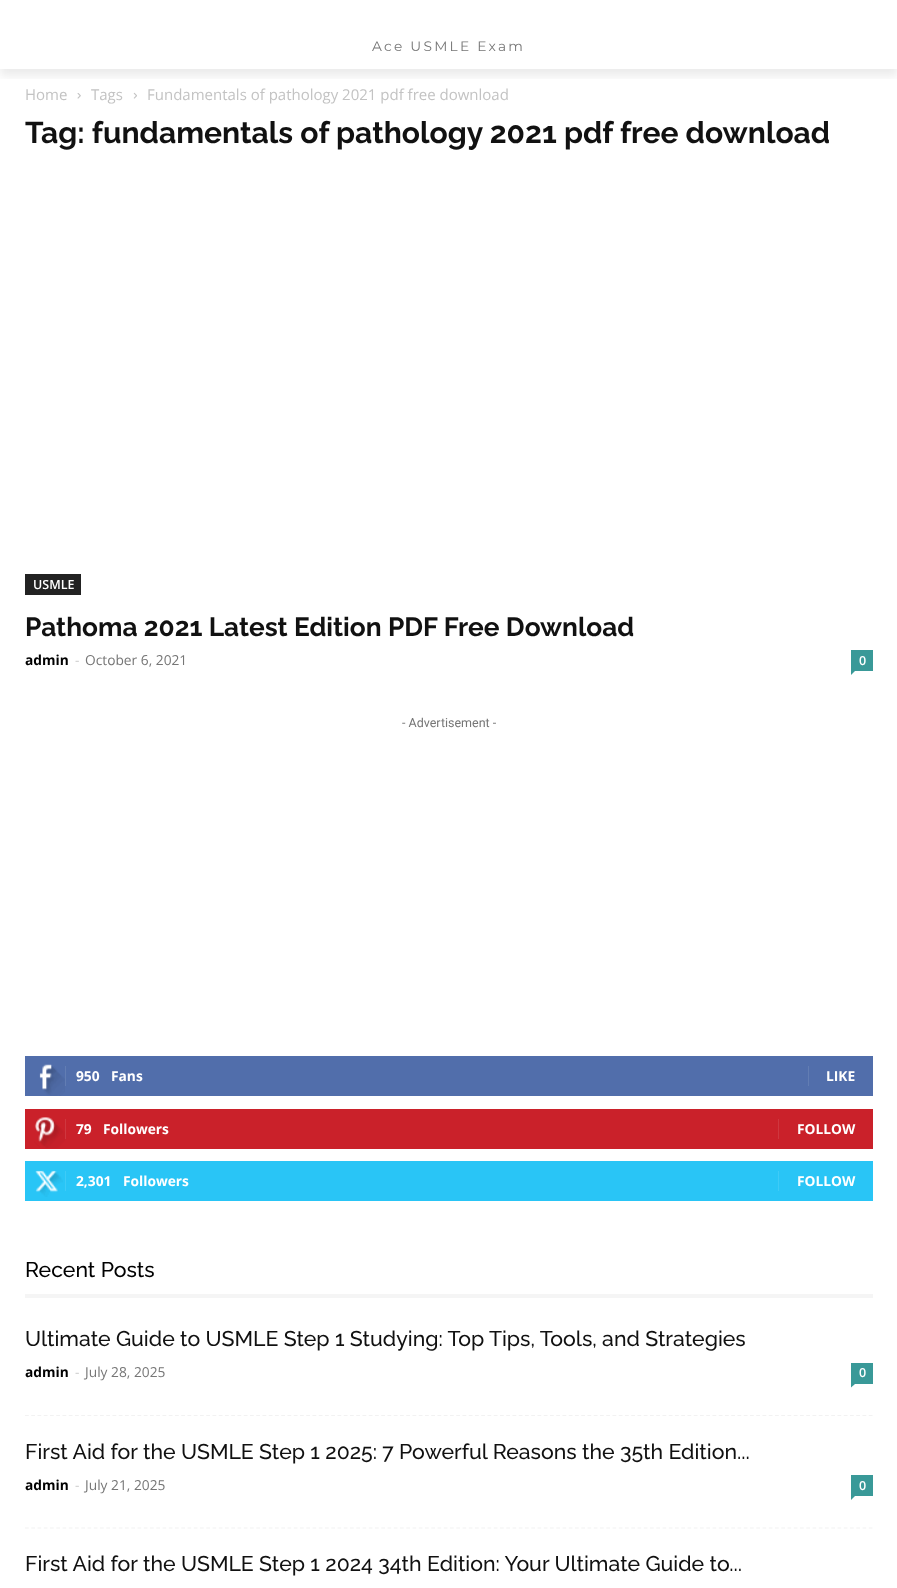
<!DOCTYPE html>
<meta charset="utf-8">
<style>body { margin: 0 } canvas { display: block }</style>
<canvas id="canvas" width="897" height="1588"></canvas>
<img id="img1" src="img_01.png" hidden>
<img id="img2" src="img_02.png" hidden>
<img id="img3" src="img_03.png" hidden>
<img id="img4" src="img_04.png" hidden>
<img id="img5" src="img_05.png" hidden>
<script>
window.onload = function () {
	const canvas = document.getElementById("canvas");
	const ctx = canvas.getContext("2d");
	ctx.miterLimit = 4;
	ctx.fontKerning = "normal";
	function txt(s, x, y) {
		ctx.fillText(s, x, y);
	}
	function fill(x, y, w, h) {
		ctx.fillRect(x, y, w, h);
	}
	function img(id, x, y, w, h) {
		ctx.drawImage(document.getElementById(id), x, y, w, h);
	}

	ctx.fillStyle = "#FFFFFF";
	fill(0, 0, 897, 1588);
	ctx.save();
	ctx.beginPath();
	ctx.rect(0, 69, 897, 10);
	ctx.clip();
	ctx.fillStyle = "rgba(0, 0, 0, 0.08)";
	ctx.filter = "blur(5px)";
	ctx.beginPath();
	ctx.rect(0, 8, 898, 68);
	ctx.fill();
	ctx.filter = "none";
	ctx.restore();
	img("img1", 77, 93, 4, 6);
	img("img2", 133, 92, 4, 7);
	ctx.fillStyle = "#222222";
	fill(25, 574, 56, 21);
	ctx.fillStyle = "#399998";
	fill(851, 650, 22, 21);
	ctx.beginPath();
	ctx.moveTo(851, 671);
	ctx.lineTo(855, 671);
	ctx.lineTo(851, 675);
	ctx.closePath();
	ctx.fill();
	ctx.fillStyle = "#516EAB";
	fill(25, 1056, 848, 40);
	img("img3", 39, 1064, 26, 32);
	ctx.fillStyle = "#627DB3";
	fill(65, 1066, 1, 20);
	fill(808, 1066, 1, 20);
	ctx.fillStyle = "#CA212A";
	fill(25, 1109, 848, 40);
	img("img4", 34, 1117, 31, 31);
	ctx.fillStyle = "#CF373F";
	fill(65, 1119, 1, 20);
	fill(778, 1119, 1, 20);
	ctx.fillStyle = "#29C5F6";
	fill(25, 1161, 848, 40);
	img("img5", 35, 1170, 28, 27);
	ctx.fillStyle = "#3ECBF7";
	fill(65, 1171, 1, 20);
	fill(778, 1171, 1, 20);
	ctx.fillStyle = "#F5F5F5";
	fill(25, 1294, 848, 4);
	ctx.beginPath();
	ctx.moveTo(25, 1415.5);
	ctx.lineTo(872.5, 1415.5);
	ctx.strokeStyle = "#F2F2F2";
	ctx.lineWidth = 1.2;
	ctx.setLineDash([3.75, 2.5]);
	ctx.stroke();
	ctx.fillStyle = "#399998";
	fill(851, 1363, 22, 21);
	ctx.beginPath();
	ctx.moveTo(851, 1384);
	ctx.lineTo(855, 1384);
	ctx.lineTo(851, 1387.5);
	ctx.closePath();
	ctx.fill();
	ctx.beginPath();
	ctx.moveTo(25, 1528);
	ctx.lineTo(872.5, 1528);
	ctx.stroke();
	fill(851, 1475, 22, 21);
	ctx.beginPath();
	ctx.moveTo(851, 1496);
	ctx.lineTo(855, 1496);
	ctx.lineTo(851, 1500);
	ctx.closePath();
	ctx.fill();
	ctx.letterSpacing = "2.25px";
	ctx.font = "13.75px Montserrat";
	ctx.fillStyle = "#767676";
	txt("Ace USMLE Exam", 372, 51);
	ctx.letterSpacing = "0px";
	ctx.font = "15px Open Sans";
	ctx.fillStyle = "#C3C3C3";
	txt("Home", 25, 100);
	txt("Tags", 91, 100);
	txt("Fundamentals of pathology 2021 pdf free download", 147, 100);
	ctx.font = "bold 30px Raleway";
	ctx.fillStyle = "#111111";
	txt("Tag: fundamentals of pathology 2021 pdf free download", 25, 143);
	ctx.font = "600 12.5px Open Sans";
	ctx.fillStyle = "#FFFFFF";
	txt("USMLE", 33, 589);
	ctx.font = "bold 26.25px Raleway";
	ctx.fillStyle = "#111111";
	txt("Pathoma 2021 Latest Edition PDF Free Download", 25, 636);
	ctx.font = "bold 13.75px Open Sans";
	ctx.fillStyle = "#000000";
	txt("admin", 25, 665);
	ctx.font = "13.75px Open Sans";
	ctx.fillStyle = "#CCCCCC";
	txt("-", 75, 665);
	ctx.fillStyle = "#767676";
	txt("October 6, 2021", 85, 665);
	ctx.font = "600 12.5px Open Sans";
	ctx.fillStyle = "#FFFFFF";
	txt("0", 859, 665);
	ctx.font = "12.5px Roboto";
	ctx.fillStyle = "#767676";
	txt("- Advertisement -", 402, 727);
	ctx.font = "bold 13.75px Open Sans";
	ctx.fillStyle = "#FFFFFF";
	txt("950", 76, 1081);
	txt("Fans", 111, 1081);
	txt("LIKE", 826, 1081);
	txt("79", 76, 1134);
	txt("Followers", 103, 1134);
	txt("FOLLOW", 797, 1134);
	txt("2,301", 76, 1186);
	txt("Followers", 123, 1186);
	txt("FOLLOW", 797, 1186);
	ctx.font = "500 21.25px Raleway";
	ctx.fillStyle = "#000000";
	txt("Recent Posts", 25, 1277);
	ctx.fillStyle = "#111111";
	txt("Ultimate Guide to USMLE Step 1 Studying: Top Tips, Tools, and Strategies", 25, 1346);
	ctx.font = "bold 13.75px Open Sans";
	ctx.fillStyle = "#000000";
	txt("admin", 25, 1377);
	ctx.font = "13.75px Open Sans";
	ctx.fillStyle = "#CCCCCC";
	txt("-", 75, 1377);
	ctx.fillStyle = "#767676";
	txt("July 28, 2025", 85, 1377);
	ctx.font = "600 12.5px Open Sans";
	ctx.fillStyle = "#FFFFFF";
	txt("0", 859, 1377);
	ctx.font = "500 21.25px Raleway";
	ctx.fillStyle = "#111111";
	txt("First Aid for the USMLE Step 1 2025: 7 Powerful Reasons the 35th Edition...", 25, 1459);
	ctx.font = "bold 13.75px Open Sans";
	ctx.fillStyle = "#000000";
	txt("admin", 25, 1490);
	ctx.font = "13.75px Open Sans";
	ctx.fillStyle = "#CCCCCC";
	txt("-", 75, 1490);
	ctx.fillStyle = "#767676";
	txt("July 21, 2025", 85, 1490);
	ctx.font = "600 12.5px Open Sans";
	ctx.fillStyle = "#FFFFFF";
	txt("0", 859, 1490);
	ctx.font = "500 21.25px Raleway";
	ctx.fillStyle = "#111111";
	txt("First Aid for the USMLE Step 1 2024 34th Edition: Your Ultimate Guide to...", 25, 1571);
};
</script>
